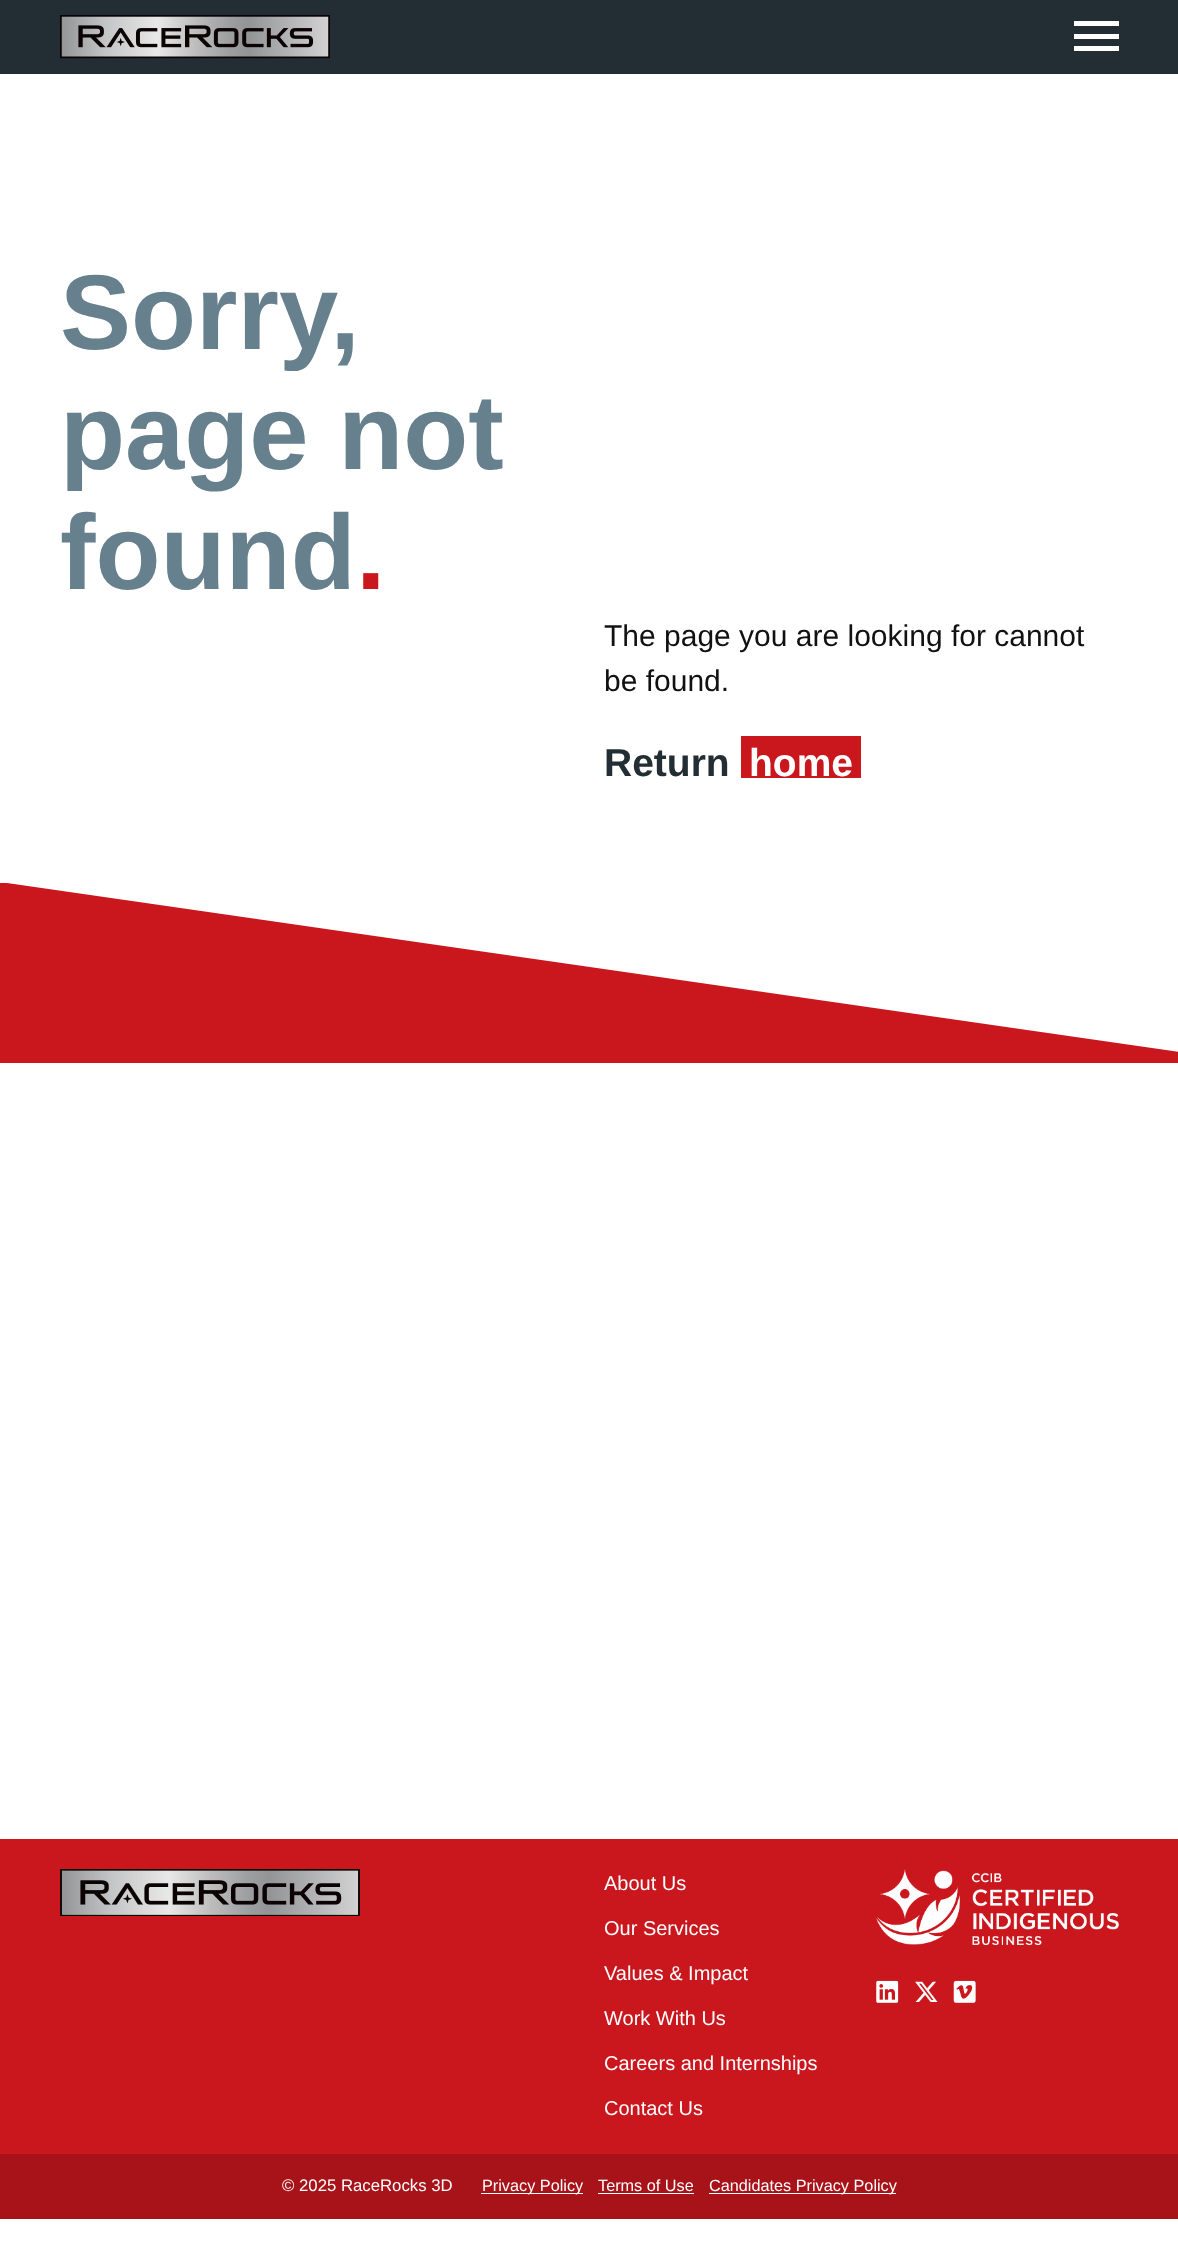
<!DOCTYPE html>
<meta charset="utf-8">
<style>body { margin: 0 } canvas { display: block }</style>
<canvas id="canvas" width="1178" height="2258"></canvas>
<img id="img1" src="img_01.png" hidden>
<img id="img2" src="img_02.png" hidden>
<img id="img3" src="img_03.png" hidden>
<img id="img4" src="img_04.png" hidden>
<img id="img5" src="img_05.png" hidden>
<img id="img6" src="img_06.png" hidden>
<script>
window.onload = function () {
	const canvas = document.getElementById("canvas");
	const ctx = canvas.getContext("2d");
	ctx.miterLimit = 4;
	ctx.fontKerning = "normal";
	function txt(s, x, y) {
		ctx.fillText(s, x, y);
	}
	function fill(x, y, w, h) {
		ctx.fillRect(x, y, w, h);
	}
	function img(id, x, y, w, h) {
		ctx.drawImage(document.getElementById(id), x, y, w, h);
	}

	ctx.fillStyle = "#FFFFFF";
	fill(0, 0, 1178, 2258);
	ctx.fillStyle = "#232E34";
	fill(0, 0, 1178, 74);
	img("img1", 60, 15, 270, 44);
	ctx.fillStyle = "#FFFFFF";
	fill(1074, 21, 45, 5);
	fill(1074, 34, 45, 5);
	fill(1074, 46, 45, 5);
	ctx.fillStyle = "#CA171E";
	fill(741, 736, 120, 42);
	ctx.save();
	ctx.beginPath();
	ctx.rect(0, 883, 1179, 180);
	ctx.clip();
	ctx.beginPath();
	ctx.moveTo(0, 882);
	ctx.lineTo(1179, 1052);
	ctx.lineTo(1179, 1064);
	ctx.lineTo(0, 1064);
	ctx.closePath();
	ctx.fill();
	ctx.restore();
	fill(0, 1839, 1178, 315);
	img("img2", 60, 1869, 300, 47);
	img("img3", 876, 1869, 243, 76);
	img("img4", 876, 1980, 23, 23);
	img("img5", 915, 1981, 23, 21);
	img("img6", 953, 1980, 23, 23);
	ctx.fillStyle = "#A71319";
	fill(0, 2154, 1178, 65);
	ctx.fillStyle = "#FFFFFF";
	fill(481, 2193, 102, 1);
	fill(598, 2193, 96, 1);
	fill(709, 2193, 187, 1);
	ctx.font = "bold 106.5px Liberation Sans";
	ctx.fillStyle = "#66808D";
	txt("Sorry,", 60, 349);
	txt("page not", 60, 469);
	txt("found", 60, 589);
	ctx.fillStyle = "#CA171E";
	txt(".", 356, 589);
	ctx.font = "30px Liberation Sans";
	ctx.fillStyle = "#111111";
	txt("The page you are looking for cannot", 604, 646);
	txt("be found.", 604, 691);
	ctx.font = "bold 39px Liberation Sans";
	ctx.fillStyle = "#232E34";
	txt("Return", 604, 776);
	ctx.fillStyle = "#FFFFFF";
	txt("home", 749, 776);
	ctx.font = "20px Liberation Sans";
	txt("About Us", 604, 1890);
	txt("Our Services", 604, 1935);
	txt("Values & Impact", 604, 1980);
	txt("Work With Us", 604, 2025);
	txt("Careers and Internships", 604, 2070);
	txt("Contact Us", 604, 2115);
	ctx.font = "16.75px Liberation Sans";
	txt("© 2025 RaceRocks 3D", 282, 2191);
	ctx.font = "16.25px Liberation Sans";
	txt("Privacy Policy", 482, 2191);
	txt("Terms of Use", 598, 2191);
	txt("Candidates Privacy Policy", 709, 2191);
};
</script>
